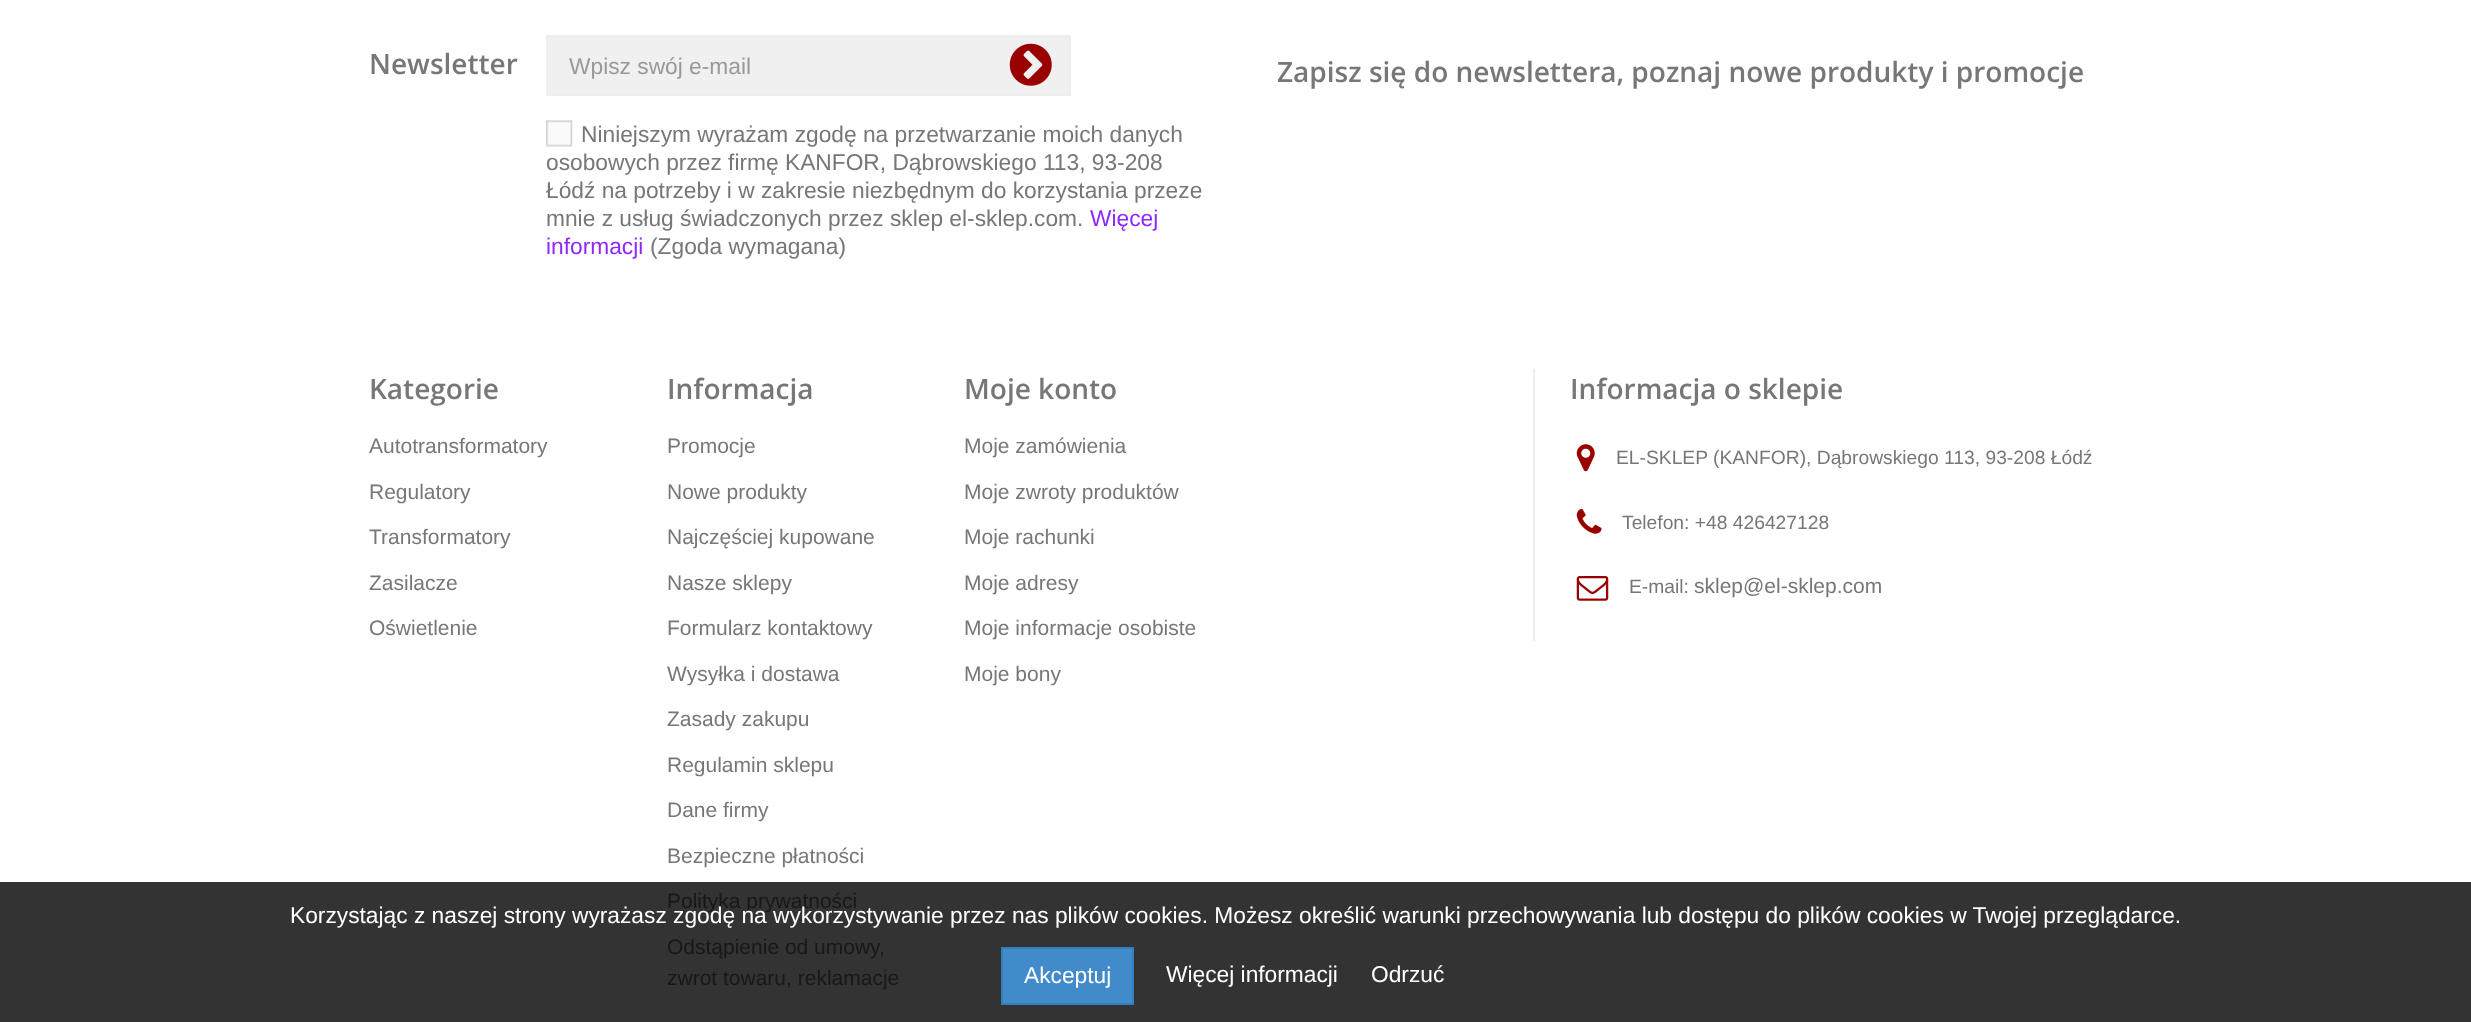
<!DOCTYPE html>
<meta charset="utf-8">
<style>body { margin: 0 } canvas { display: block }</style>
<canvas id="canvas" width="2471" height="1022"></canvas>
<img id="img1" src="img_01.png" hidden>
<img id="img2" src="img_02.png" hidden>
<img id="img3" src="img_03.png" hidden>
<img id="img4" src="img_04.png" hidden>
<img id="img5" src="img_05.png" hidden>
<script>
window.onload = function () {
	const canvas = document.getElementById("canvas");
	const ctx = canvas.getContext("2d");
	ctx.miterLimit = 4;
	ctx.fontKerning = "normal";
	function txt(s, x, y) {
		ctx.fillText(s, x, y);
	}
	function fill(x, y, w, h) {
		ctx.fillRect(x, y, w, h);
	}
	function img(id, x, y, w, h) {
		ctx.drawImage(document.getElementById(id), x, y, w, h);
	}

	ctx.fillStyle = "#FFFFFF";
	fill(0, 0, 2471, 1022);
	ctx.fillStyle = "#333333";
	fill(0, 882, 2471, 140);
	ctx.fillStyle = "#F0F0F0";
	ctx.beginPath();
	ctx.rect(547, 36, 523, 59);
	ctx.fill();
	ctx.strokeStyle = "#EEEEEE";
	ctx.lineWidth = 2;
	ctx.stroke();
	img("img1", 1009, 43, 43, 43);
	img("img2", 546, 120, 27, 27);
	ctx.fillStyle = "#EEEEEE";
	fill(1533, 369, 2, 272);
	img("img3", 1576, 444, 19, 28);
	img("img4", 1576, 509, 26, 25);
	img("img5", 1576, 576, 33, 25);
	ctx.fillStyle = "#428BCA";
	ctx.beginPath();
	ctx.rect(1002, 948, 131, 56);
	ctx.fill();
	ctx.strokeStyle = "#357EBD";
	ctx.stroke();
	ctx.font = "600 28px Open Sans";
	ctx.fillStyle = "#777777";
	txt("Newsletter", 369, 74);
	ctx.font = "22.75px Liberation Sans";
	ctx.fillStyle = "#999999";
	txt("Wpisz swój e-mail", 569, 74);
	ctx.fillStyle = "#777777";
	txt("Niniejszym wyrażam zgodę na przetwarzanie moich danych", 581, 142);
	txt("osobowych przez firmę KANFOR, Dąbrowskiego 113, 93-208", 546, 170);
	txt("Łódź na potrzeby i w zakresie niezbędnym do korzystania przeze", 546, 198);
	txt("mnie z usług świadczonych przez sklep el-sklep.com.", 546, 226);
	ctx.fillStyle = "#8F28FE";
	txt("Więcej", 1090, 226);
	txt("informacji", 546, 254);
	ctx.fillStyle = "#777777";
	txt("(Zgoda wymagana)", 650, 254);
	ctx.font = "600 28px Open Sans";
	txt("Zapisz się do newslettera, poznaj nowe produkty i promocje", 1277, 82);
	txt("Kategorie", 369, 399);
	ctx.font = "21px Liberation Sans";
	txt("Autotransformatory", 369, 453);
	txt("Regulatory", 369, 499);
	txt("Transformatory", 369, 544);
	txt("Zasilacze", 369, 590);
	txt("Oświetlenie", 369, 635);
	ctx.font = "600 28px Open Sans";
	txt("Informacja", 667, 399);
	ctx.font = "21px Liberation Sans";
	txt("Promocje", 667, 453);
	txt("Nowe produkty", 667, 499);
	txt("Najczęściej kupowane", 667, 544);
	txt("Nasze sklepy", 667, 590);
	txt("Formularz kontaktowy", 667, 635);
	txt("Wysyłka i dostawa", 667, 681);
	txt("Zasady zakupu", 667, 726);
	txt("Regulamin sklepu", 667, 772);
	txt("Dane firmy", 667, 817);
	txt("Bezpieczne płatności", 667, 863);
	ctx.fillStyle = "#181818";
	txt("Polityka prywatności", 667, 908);
	txt("Odstąpienie od umowy,", 667, 954);
	txt("zwrot towaru, reklamacje", 667, 985);
	ctx.font = "600 28px Open Sans";
	ctx.fillStyle = "#777777";
	txt("Moje konto", 964, 399);
	ctx.font = "21px Liberation Sans";
	txt("Moje zamówienia", 964, 453);
	txt("Moje zwroty produktów", 964, 499);
	txt("Moje rachunki", 964, 544);
	txt("Moje adresy", 964, 590);
	txt("Moje informacje osobiste", 964, 635);
	txt("Moje bony", 964, 681);
	ctx.font = "600 28px Open Sans";
	txt("Informacja o sklepie", 1570, 399);
	ctx.font = "19.25px Liberation Sans";
	txt("EL-SKLEP (KANFOR), Dąbrowskiego 113, 93-208 Łódź", 1616, 464);
	txt("Telefon: +48 426427128", 1622, 529);
	txt("E-mail:", 1629, 593);
	ctx.font = "21px Liberation Sans";
	txt("sklep@el-sklep.com", 1694, 593);
	ctx.font = "22.75px Liberation Sans";
	ctx.fillStyle = "#FFFFFF";
	txt("Korzystając z naszej strony wyrażasz zgodę na wykorzystywanie przez nas plików cookies. Możesz określić warunki przechowywania lub dostępu do plików cookies w Twojej przeglądarce.", 290, 923);
	txt("Akceptuj", 1024, 983);
	txt("Więcej informacji", 1166, 982);
	txt("Odrzuć", 1371, 982);
};
</script>
